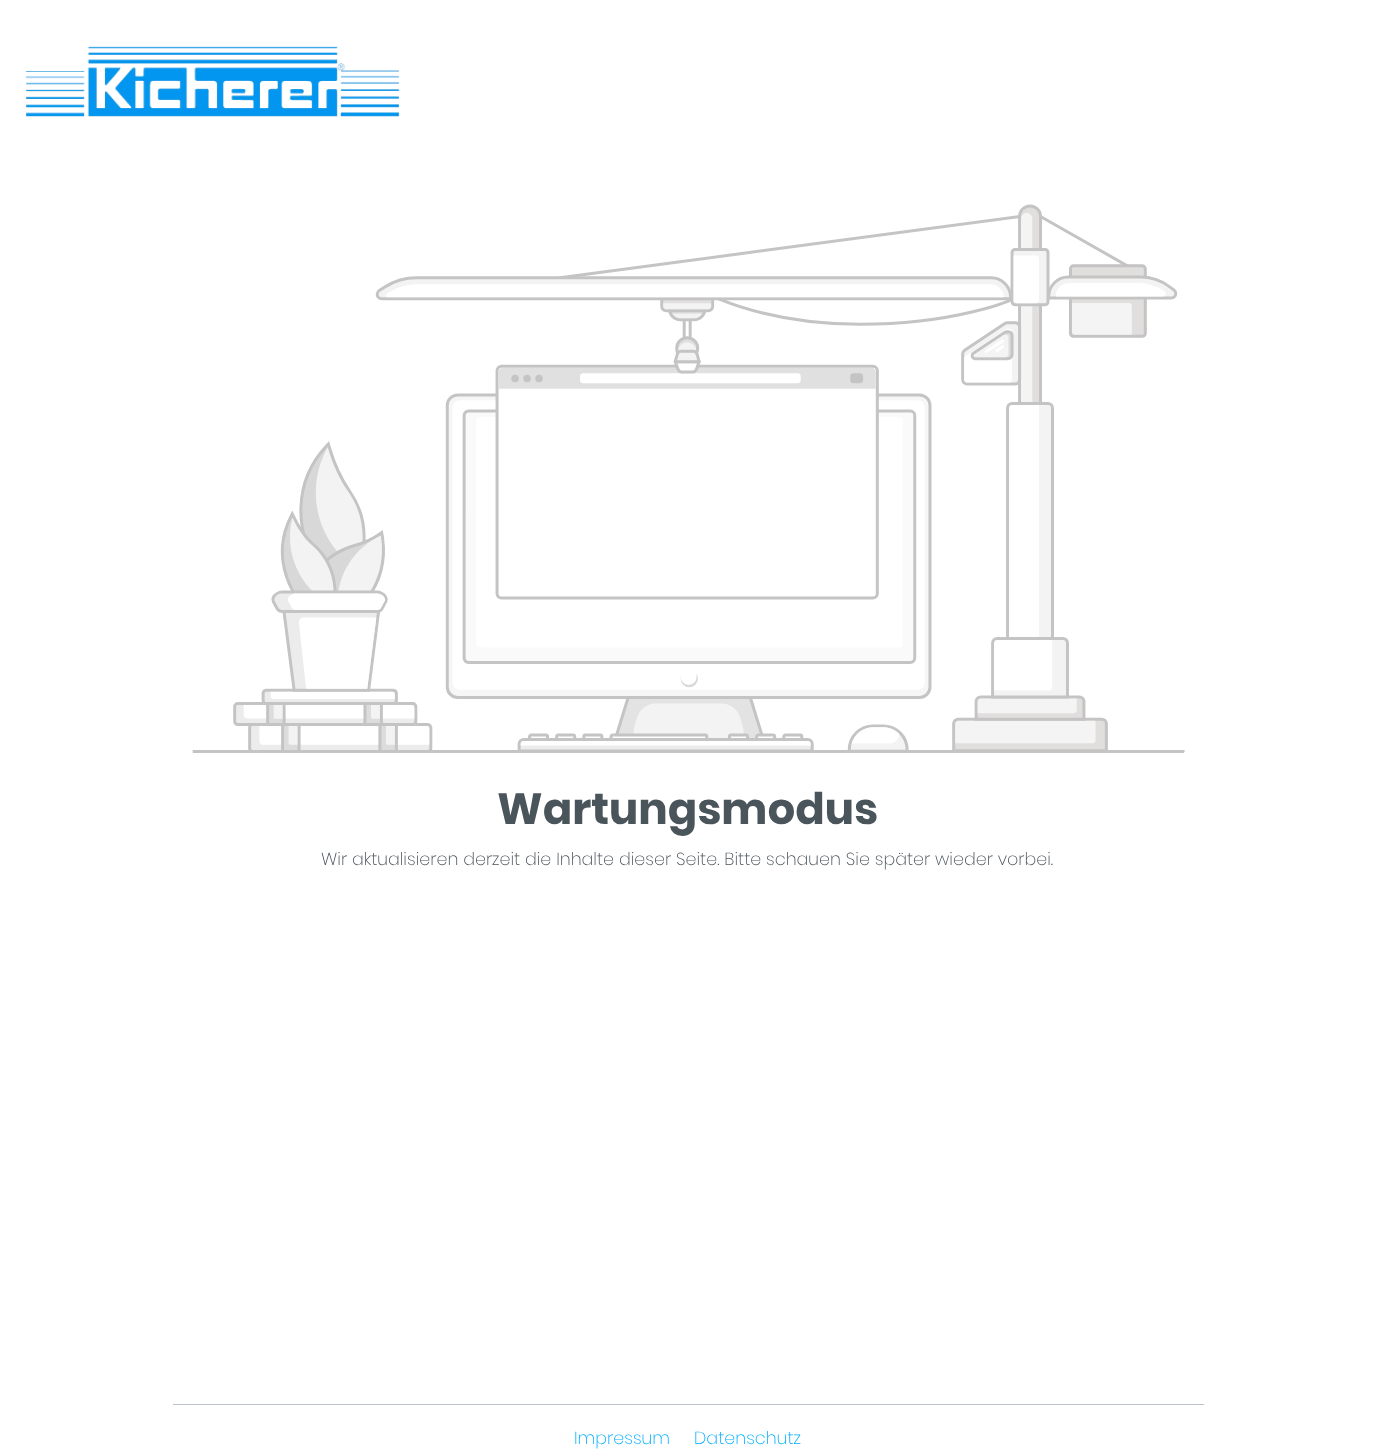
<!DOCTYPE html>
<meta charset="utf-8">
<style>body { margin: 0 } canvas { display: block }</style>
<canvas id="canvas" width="1374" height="1451"></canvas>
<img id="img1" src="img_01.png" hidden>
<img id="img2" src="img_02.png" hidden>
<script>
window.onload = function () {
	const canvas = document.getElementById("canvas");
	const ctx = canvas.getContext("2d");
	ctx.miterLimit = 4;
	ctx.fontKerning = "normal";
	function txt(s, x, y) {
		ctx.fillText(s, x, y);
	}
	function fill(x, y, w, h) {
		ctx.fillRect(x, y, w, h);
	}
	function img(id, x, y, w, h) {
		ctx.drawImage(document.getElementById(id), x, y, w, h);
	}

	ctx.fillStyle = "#FFFFFF";
	fill(0, 0, 1374, 1451);
	img("img1", 25, 46, 375, 71);
	img("img2", 192, 204, 993, 549);
	ctx.fillStyle = "#BCC1C7";
	fill(173, 1404, 1031, 1);
	ctx.font = "bold 43.5px Poppins";
	ctx.fillStyle = "#4A545B";
	txt("Wartungsmodus", 497, 824);
	ctx.font = "200 17.5px Poppins";
	txt("Wir aktualisieren derzeit die Inhalte dieser Seite. Bitte schauen Sie später wieder vorbei.", 321, 865);
	ctx.fillStyle = "#00AEFF";
	txt("Impressum", 574, 1444);
	txt("Datenschutz", 694, 1444);
};
</script>
